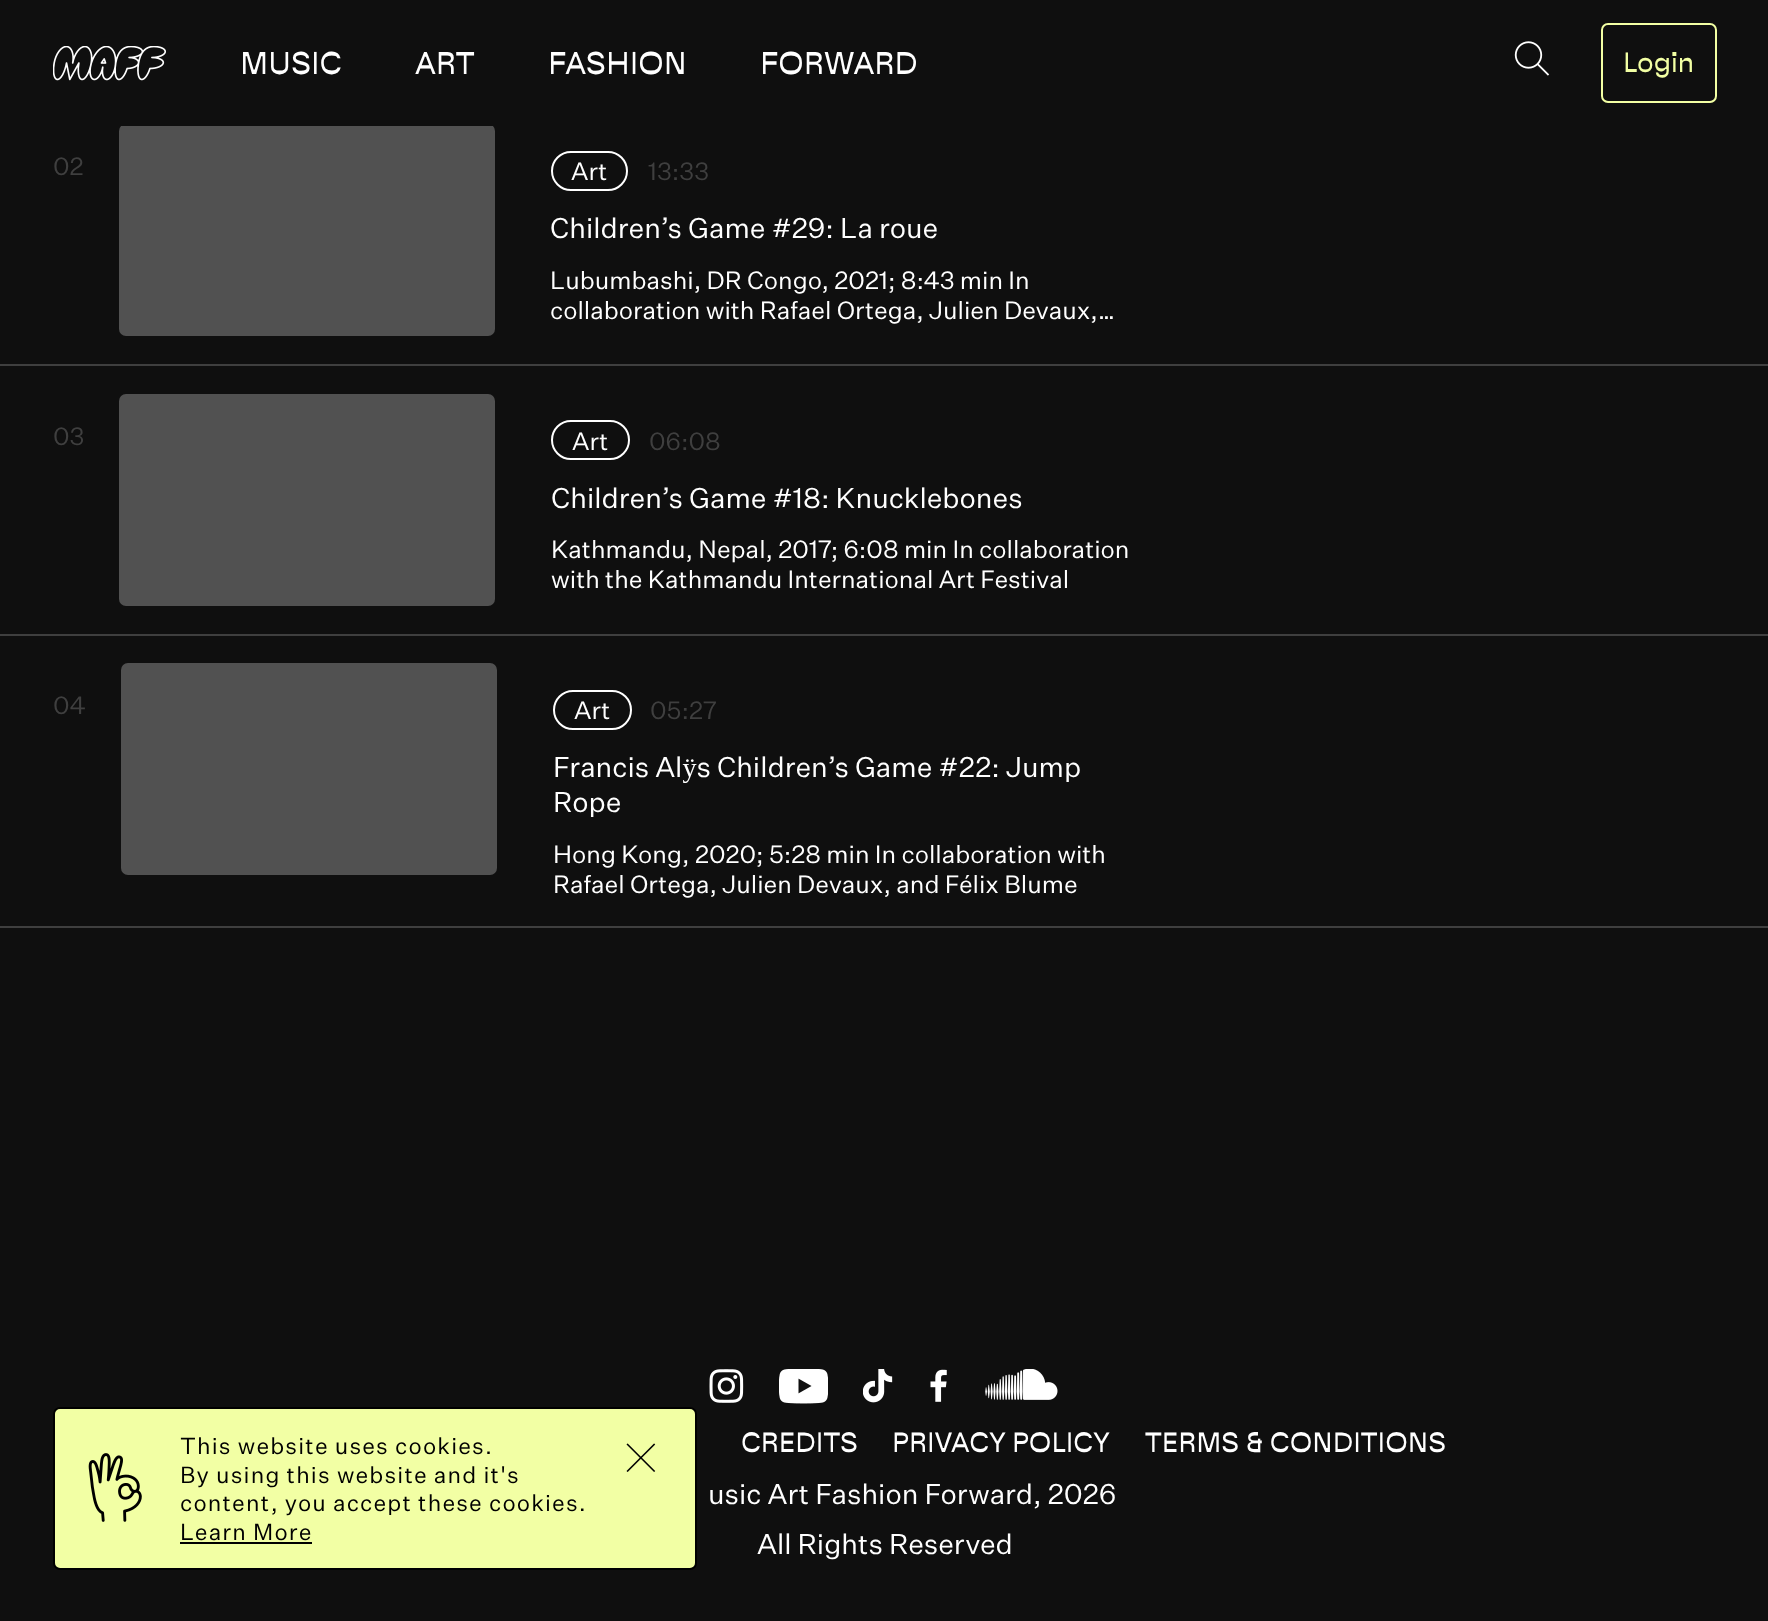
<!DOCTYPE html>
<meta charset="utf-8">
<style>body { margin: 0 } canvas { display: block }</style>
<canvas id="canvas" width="1768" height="1621"></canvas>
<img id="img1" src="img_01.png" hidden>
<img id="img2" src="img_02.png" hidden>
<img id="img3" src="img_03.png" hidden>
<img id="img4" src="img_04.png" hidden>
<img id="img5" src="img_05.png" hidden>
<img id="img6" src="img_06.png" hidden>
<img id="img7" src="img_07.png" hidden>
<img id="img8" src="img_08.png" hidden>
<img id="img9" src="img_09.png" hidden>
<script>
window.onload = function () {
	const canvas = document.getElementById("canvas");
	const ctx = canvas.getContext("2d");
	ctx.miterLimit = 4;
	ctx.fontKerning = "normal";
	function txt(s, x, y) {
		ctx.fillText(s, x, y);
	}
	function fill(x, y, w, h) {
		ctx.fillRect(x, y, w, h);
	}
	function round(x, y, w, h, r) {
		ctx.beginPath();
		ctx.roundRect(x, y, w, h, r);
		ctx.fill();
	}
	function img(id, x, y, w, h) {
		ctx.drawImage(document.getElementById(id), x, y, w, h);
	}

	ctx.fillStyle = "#0F0F0F";
	fill(0, 0, 1768, 1621);
	ctx.fillStyle = "#515151";
	round(119, 124, 376, 212, 7);
	ctx.fillStyle = "#0F0F0F";
	fill(121, 124, 372, 2);
	img("img1", 53, 46, 113, 35);
	img("img2", 1514, 41, 36, 35);
	ctx.beginPath();
	ctx.roundRect(1602, 24, 114, 78, 6);
	ctx.strokeStyle = "#F2FFA4";
	ctx.lineWidth = 2;
	ctx.stroke();
	ctx.beginPath();
	ctx.roundRect(552, 152, 75, 38, 19);
	ctx.strokeStyle = "#FFFFFF";
	ctx.stroke();
	ctx.fillStyle = "#3F3F3F";
	fill(0, 364, 1768, 2);
	ctx.fillStyle = "#515151";
	round(119, 394, 376, 212, 7);
	ctx.beginPath();
	ctx.roundRect(552, 421, 77, 38, 19);
	ctx.stroke();
	ctx.fillStyle = "#3F3F3F";
	fill(0, 634, 1768, 2);
	ctx.fillStyle = "#515151";
	round(121, 663, 376, 212, 7);
	ctx.beginPath();
	ctx.roundRect(554, 691, 77, 38, 19);
	ctx.stroke();
	ctx.fillStyle = "#3F3F3F";
	fill(0, 926, 1768, 2);
	ctx.fillStyle = "#F2FFA4";
	ctx.beginPath();
	ctx.roundRect(54, 1408, 642, 161, 6);
	ctx.fill();
	ctx.strokeStyle = "#000000";
	ctx.stroke();
	img("img3", 88, 1453, 54, 69);
	ctx.fillStyle = "#000000";
	fill(180, 1542, 132, 2);
	img("img4", 626, 1443, 30, 29);
	img("img5", 709, 1369, 35, 34);
	img("img6", 779, 1369, 49, 35);
	img("img7", 863, 1369, 30, 34);
	img("img8", 930, 1369, 17, 33);
	img("img9", 985, 1369, 73, 31);
	ctx.font = "31.5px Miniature";
	ctx.fillStyle = "#FFFFFF";
	txt("MUSIC", 240, 74);
	txt("ART", 415, 74);
	txt("FASHION", 548, 74);
	txt("FORWARD", 760, 74);
	ctx.font = "28px Miniature";
	ctx.fillStyle = "#F2FFA4";
	txt("Login", 1623, 72);
	ctx.font = "24.5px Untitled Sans";
	ctx.fillStyle = "#3F3F3F";
	txt("02", 53, 175);
	ctx.fillStyle = "#FFFFFF";
	txt("Art", 571, 180);
	ctx.fillStyle = "#3F3F3F";
	txt("13:33", 648, 180);
	ctx.font = "28px Untitled Sans";
	ctx.fillStyle = "#FFFFFF";
	txt("Children’s Game #29: La roue", 550, 238);
	ctx.font = "24.5px Untitled Sans";
	txt("Lubumbashi, DR Congo, 2021; 8:43 min In", 550, 289);
	txt("collaboration with Rafael Ortega, Julien Devaux,…", 550, 319);
	ctx.fillStyle = "#3F3F3F";
	txt("03", 53, 445);
	ctx.fillStyle = "#FFFFFF";
	txt("Art", 572, 450);
	ctx.fillStyle = "#3F3F3F";
	txt("06:08", 649, 450);
	ctx.font = "28px Untitled Sans";
	ctx.fillStyle = "#FFFFFF";
	txt("Children’s Game #18: Knucklebones", 551, 508);
	ctx.font = "24.5px Untitled Sans";
	txt("Kathmandu, Nepal, 2017; 6:08 min In collaboration", 551, 558);
	txt("with the Kathmandu International Art Festival", 551, 588);
	ctx.fillStyle = "#3F3F3F";
	txt("04", 53, 714);
	ctx.fillStyle = "#FFFFFF";
	txt("Art", 574, 719);
	ctx.fillStyle = "#3F3F3F";
	txt("05:27", 650, 719);
	ctx.font = "28px Untitled Sans";
	ctx.fillStyle = "#FFFFFF";
	txt("Francis Alÿs Children’s Game #22: Jump", 553, 777);
	txt("Rope", 553, 812);
	ctx.font = "24.5px Untitled Sans";
	txt("Hong Kong, 2020; 5:28 min In collaboration with", 553, 863);
	txt("Rafael Ortega, Julien Devaux, and Félix Blume", 553, 893);
	ctx.letterSpacing = "1.15px";
	ctx.font = "22.75px Untitled Sans";
	ctx.fillStyle = "#000000";
	txt("This website uses cookies.", 180, 1454);
	txt("By using this website and it's", 180, 1483);
	txt("content, you accept these cookies.", 180, 1511);
	txt("Learn More", 180, 1540);
	ctx.letterSpacing = "0px";
	ctx.font = "28px Miniature";
	ctx.fillStyle = "#FFFFFF";
	txt("CREDITS", 741, 1452);
	txt("PRIVACY POLICY", 892, 1452);
	txt("TERMS & CONDITIONS", 1145, 1452);
	ctx.font = "28px Untitled Sans";
	txt("usic Art Fashion Forward, 2026", 708, 1504);
	txt("All Rights Reserved", 757, 1554);
};
</script>
